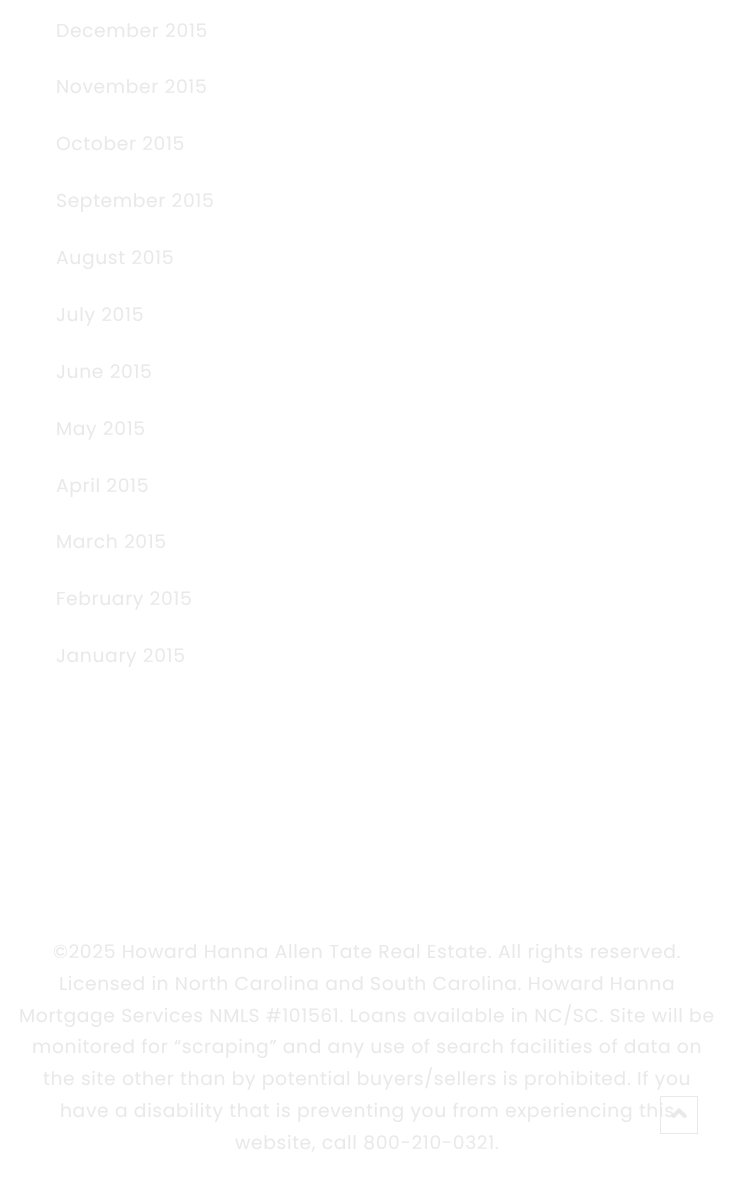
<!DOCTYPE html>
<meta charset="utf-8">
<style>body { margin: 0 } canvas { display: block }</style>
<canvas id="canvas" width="735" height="1196"></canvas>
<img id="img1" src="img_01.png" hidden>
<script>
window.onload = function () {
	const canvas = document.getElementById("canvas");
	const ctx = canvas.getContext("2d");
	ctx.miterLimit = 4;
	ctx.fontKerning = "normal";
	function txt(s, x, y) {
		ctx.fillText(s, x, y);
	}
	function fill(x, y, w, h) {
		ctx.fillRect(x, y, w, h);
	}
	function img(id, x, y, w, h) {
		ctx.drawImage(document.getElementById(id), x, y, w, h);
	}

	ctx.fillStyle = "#FFFFFF";
	fill(0, 0, 735, 1196);
	ctx.strokeStyle = "#E9E9E9";
	ctx.strokeRect(660.5, 1096.5, 37, 37);
	ctx.letterSpacing = "0.62px";
	ctx.font = "18.75px Poppins";
	ctx.fillStyle = "#E9E9E9";
	txt("December 2015", 56, 37);
	txt("November 2015", 56, 93);
	txt("October 2015", 56, 150);
	txt("September 2015", 56, 207);
	txt("August 2015", 56, 264);
	txt("July 2015", 56, 321);
	txt("June 2015", 56, 378);
	txt("May 2015", 56, 435);
	txt("April 2015", 56, 492);
	txt("March 2015", 56, 548);
	txt("February 2015", 56, 605);
	txt("January 2015", 56, 662);
	txt("©2025 Howard Hanna Allen Tate Real Estate. All rights reserved.", 53, 958);
	txt("Licensed in North Carolina and South Carolina. Howard Hanna", 59, 990);
	txt("Mortgage Services NMLS #101561. Loans available in NC/SC. Site will be", 19, 1022);
	txt("monitored for “scraping” and any use of search facilities of data on", 32, 1053);
	txt("the site other than by potential buyers/sellers is prohibited. If you", 43, 1085);
	txt("have a disability that is preventing you from experiencing this", 60, 1117);
	txt("website, call 800-210-0321.", 235, 1149);
	img("img1", 671, 1108, 16, 11);
};
</script>
